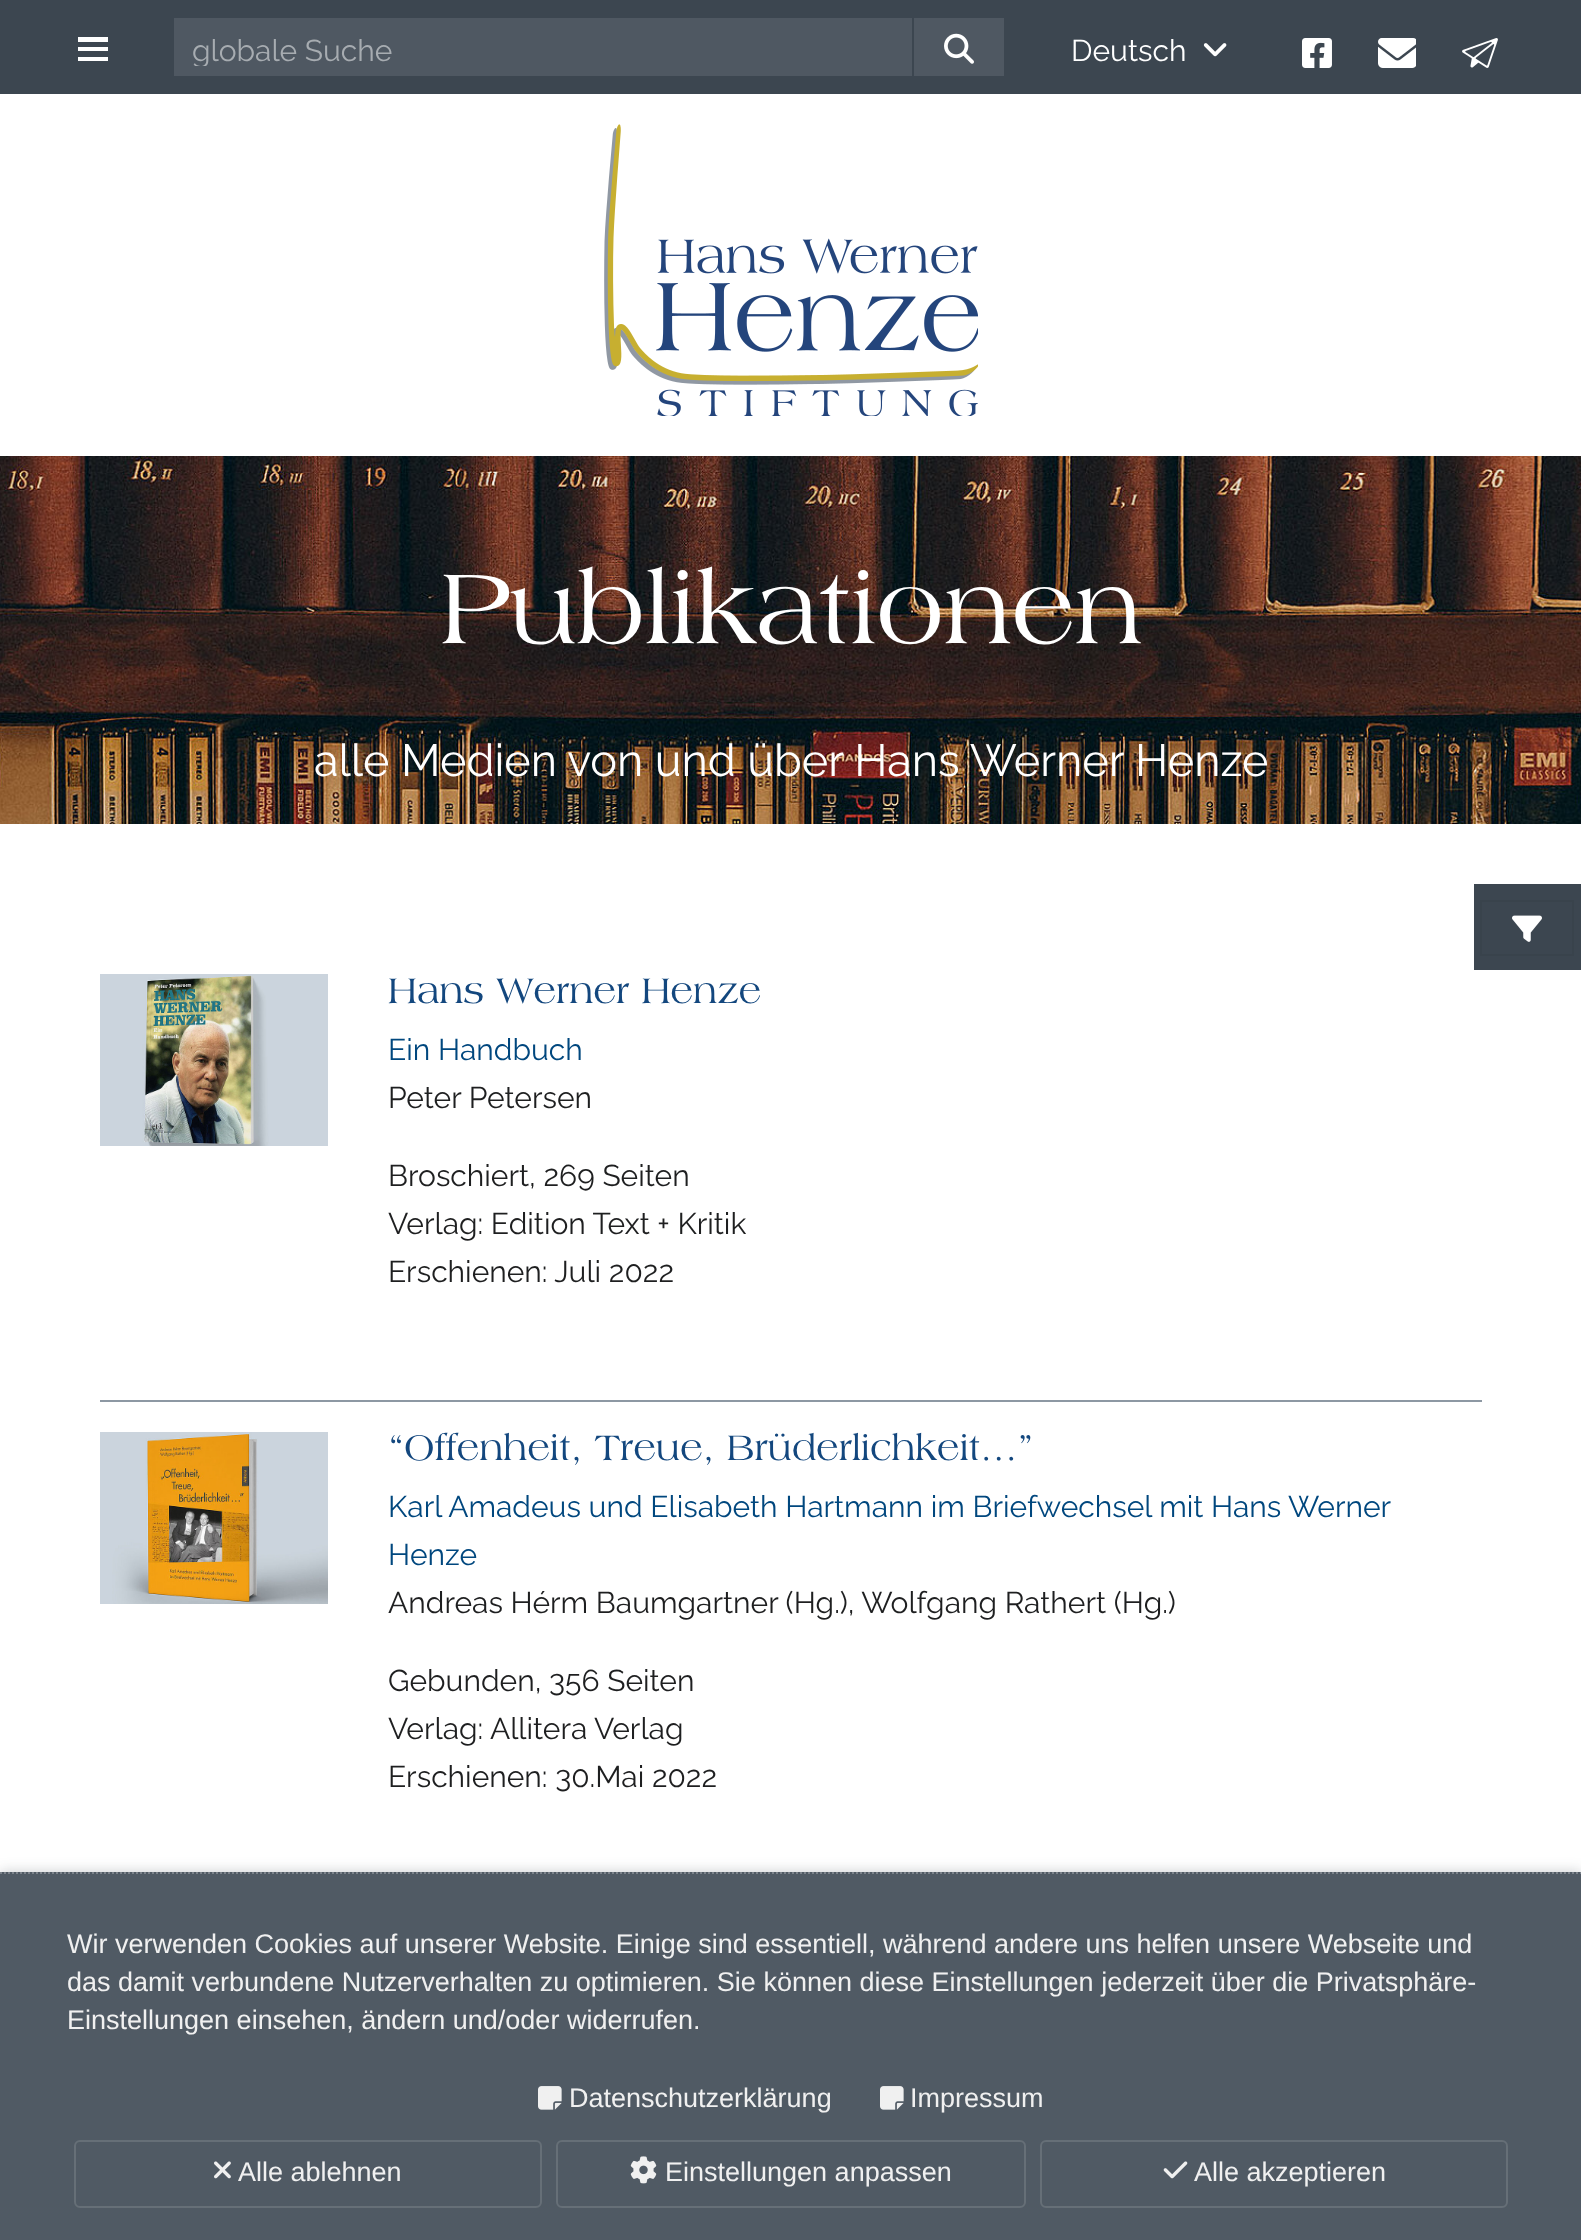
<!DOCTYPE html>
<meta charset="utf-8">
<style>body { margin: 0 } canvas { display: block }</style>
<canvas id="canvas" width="1581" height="2240"></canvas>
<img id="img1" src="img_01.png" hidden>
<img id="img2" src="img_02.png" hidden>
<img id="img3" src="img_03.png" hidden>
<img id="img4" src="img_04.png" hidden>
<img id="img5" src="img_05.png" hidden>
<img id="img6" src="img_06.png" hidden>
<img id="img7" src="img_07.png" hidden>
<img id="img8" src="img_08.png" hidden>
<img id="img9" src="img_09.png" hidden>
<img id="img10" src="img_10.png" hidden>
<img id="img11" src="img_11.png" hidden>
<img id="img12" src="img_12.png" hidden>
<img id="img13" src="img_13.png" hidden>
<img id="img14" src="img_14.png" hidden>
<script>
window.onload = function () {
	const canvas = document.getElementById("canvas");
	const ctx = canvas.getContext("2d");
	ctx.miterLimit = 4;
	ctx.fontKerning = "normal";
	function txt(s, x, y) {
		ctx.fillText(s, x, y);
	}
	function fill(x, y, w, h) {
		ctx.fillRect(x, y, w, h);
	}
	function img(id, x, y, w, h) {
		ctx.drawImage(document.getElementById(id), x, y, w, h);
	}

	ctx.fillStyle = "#FFFFFF";
	fill(0, 0, 1581, 2240);
	ctx.fillStyle = "#3C4650";
	fill(0, 0, 1581, 94);
	ctx.fillStyle = "#FFFFFF";
	fill(78, 37, 30, 5);
	fill(78, 47, 30, 4);
	fill(78, 57, 30, 4);
	ctx.fillStyle = "#4F5862";
	fill(174, 18, 738, 58);
	fill(914, 18, 90, 58);
	img("img1", 944, 33, 30, 31);
	img("img2", 1203, 43, 24, 14);
	img("img3", 1302, 38, 30, 30);
	img("img4", 1378, 38, 38, 30);
	img("img5", 1462, 38, 36, 30);
	img("img6", 604, 124, 374, 292);
	img("img7", 0, 456, 1581, 368);
	ctx.fillStyle = "#3C4650";
	fill(1474, 884, 107, 86);
	ctx.strokeStyle = "#39434C";
	ctx.lineWidth = 2;
	ctx.strokeRect(1481, 901, 92, 54);
	img("img8", 1512, 915, 30, 27);
	ctx.fillStyle = "#8D98A3";
	fill(100, 1400, 1382, 2);
	img("img9", 100, 974, 228, 172);
	img("img10", 100, 1432, 228, 172);
	ctx.fillStyle = "rgba(40, 50, 60, 0.25)";
	ctx.filter = "blur(7px)";
	ctx.beginPath();
	ctx.rect(0, 1872, 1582, 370);
	ctx.fill();
	ctx.filter = "none";
	ctx.fillStyle = "#505A64";
	fill(0, 1872, 1581, 368);
	ctx.beginPath();
	ctx.moveTo(0, 1873);
	ctx.lineTo(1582, 1873);
	ctx.strokeStyle = "#7C838B";
	ctx.setLineDash([2, 2]);
	ctx.stroke();
	img("img11", 538, 2086, 24, 24);
	img("img11", 880, 2086, 24, 24);
	ctx.beginPath();
	ctx.roundRect(75, 2141, 466, 66, 5);
	ctx.strokeStyle = "#666F77";
	ctx.setLineDash([]);
	ctx.stroke();
	img("img12", 214, 2161, 17, 18);
	ctx.beginPath();
	ctx.roundRect(557, 2141, 468, 66, 5);
	ctx.stroke();
	img("img13", 630, 2156, 27, 28);
	ctx.beginPath();
	ctx.roundRect(1041, 2141, 466, 66, 5);
	ctx.stroke();
	img("img14", 1163, 2161, 25, 18);
	ctx.save();
	ctx.beginPath();
	ctx.rect(192, 26, 702, 40);
	ctx.clip();
	ctx.font = "30px Raleway";
	ctx.fillStyle = "#A7ACB1";
	txt("globale Suche", 192, 61);
	ctx.restore();
	ctx.font = "30px Raleway";
	ctx.fillStyle = "#FFFFFF";
	txt("Deutsch", 1071, 61);
	ctx.font = "105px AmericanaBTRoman";
	txt("Publikationen", 440, 643);
	ctx.font = "45px Raleway";
	txt("alle Medien von und über Hans Werner Henze", 314, 776);
	ctx.font = "37.5px AmericanaBTRoman";
	ctx.fillStyle = "#13477E";
	txt("Hans Werner Henze", 388, 1003);
	ctx.font = "30px Raleway";
	ctx.fillStyle = "#00477E";
	txt("Ein Handbuch", 388, 1060);
	ctx.fillStyle = "#1E1F20";
	txt("Peter Petersen", 388, 1108);
	txt("Broschiert, 269 Seiten", 388, 1186);
	txt("Verlag: Edition Text + Kritik", 388, 1234);
	txt("Erschienen: Juli 2022", 388, 1282);
	ctx.font = "37.5px AmericanaBTRoman";
	ctx.fillStyle = "#13477E";
	txt("“Offenheit, Treue, Brüderlichkeit…”", 388, 1460);
	ctx.font = "30px Raleway";
	ctx.fillStyle = "#00477E";
	txt("Karl Amadeus und Elisabeth Hartmann im Briefwechsel mit Hans Werner", 388, 1517);
	txt("Henze", 388, 1565);
	ctx.fillStyle = "#1E1F20";
	txt("Andreas Hérm Baumgartner (Hg.), Wolfgang Rathert (Hg.)", 388, 1613);
	txt("Gebunden, 356 Seiten", 388, 1691);
	txt("Verlag: Allitera Verlag", 388, 1739);
	txt("Erschienen: 30.Mai 2022", 388, 1787);
	ctx.font = "27px Liberation Sans";
	ctx.fillStyle = "#F0F0F0";
	txt("Wir verwenden Cookies auf unserer Website. Einige sind essentiell, während andere uns helfen unsere Webseite und", 67, 1953);
	txt("das damit verbundene Nutzerverhalten zu optimieren. Sie können diese Einstellungen jederzeit über die Privatsphäre-", 67, 1991);
	txt("Einstellungen einsehen, ändern und/oder widerrufen.", 67, 2029);
	txt("Datenschutzerklärung", 569, 2107);
	txt("Impressum", 910, 2107);
	txt("Alle ablehnen", 238, 2181);
	txt("Einstellungen anpassen", 665, 2181);
	txt("Alle akzeptieren", 1194, 2181);
};
</script>
